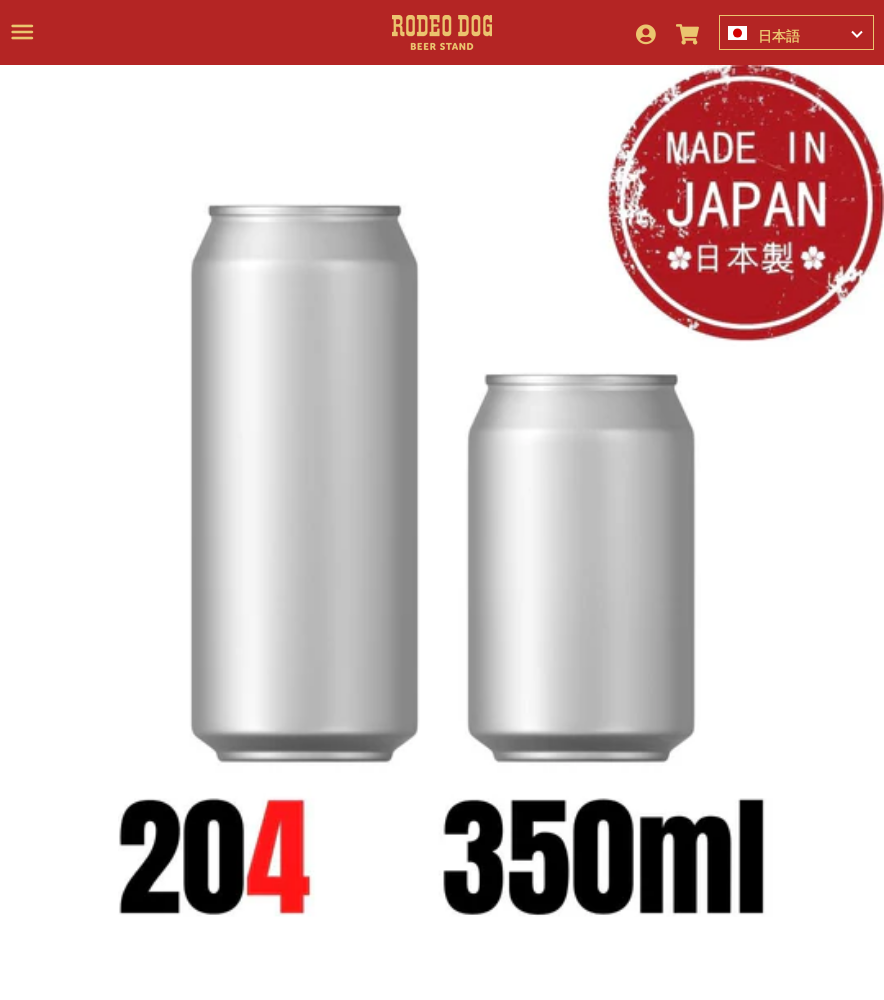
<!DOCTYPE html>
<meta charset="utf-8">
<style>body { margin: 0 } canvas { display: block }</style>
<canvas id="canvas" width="884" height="1000"></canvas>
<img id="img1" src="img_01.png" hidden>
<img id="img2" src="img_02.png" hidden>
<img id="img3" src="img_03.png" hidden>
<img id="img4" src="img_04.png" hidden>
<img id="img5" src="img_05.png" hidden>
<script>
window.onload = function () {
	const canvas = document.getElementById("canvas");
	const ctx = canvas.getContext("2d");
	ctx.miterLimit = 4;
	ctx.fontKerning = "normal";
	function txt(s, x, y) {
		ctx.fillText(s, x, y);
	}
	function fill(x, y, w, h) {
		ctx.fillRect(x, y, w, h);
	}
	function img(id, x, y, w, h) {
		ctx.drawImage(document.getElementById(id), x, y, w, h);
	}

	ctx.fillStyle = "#FFFFFF";
	fill(0, 0, 884, 1000);
	ctx.fillStyle = "#B42524";
	fill(0, 0, 884, 65);
	img("img1", 11, 24, 23, 16);
	img("img2", 392, 15, 100, 35);
	img("img3", 636, 24, 20, 21);
	img("img4", 676, 24, 23, 21);
	ctx.strokeStyle = "#EBC56F";
	ctx.strokeRect(719.5, 15.5, 154, 34);
	ctx.fillStyle = "#FFFFFF";
	fill(728, 26, 19, 14);
	ctx.fillStyle = "#D30000";
	ctx.beginPath();
	ctx.arc(737.5, 33, 4.5, 0, Math.PI * 2);
	ctx.fill();
	ctx.beginPath();
	ctx.moveTo(852, 31.5);
	ctx.lineTo(857, 36.5);
	ctx.lineTo(862, 31.5);
	ctx.strokeStyle = "#FFFFFF";
	ctx.lineWidth = 2;
	ctx.stroke();
	img("img5", 118, 65, 766, 852);
	ctx.font = "bold 14px WenQuanYi Zen Hei";
	ctx.fillStyle = "#EBC56F";
	txt("日本語", 758, 41);
};
</script>
